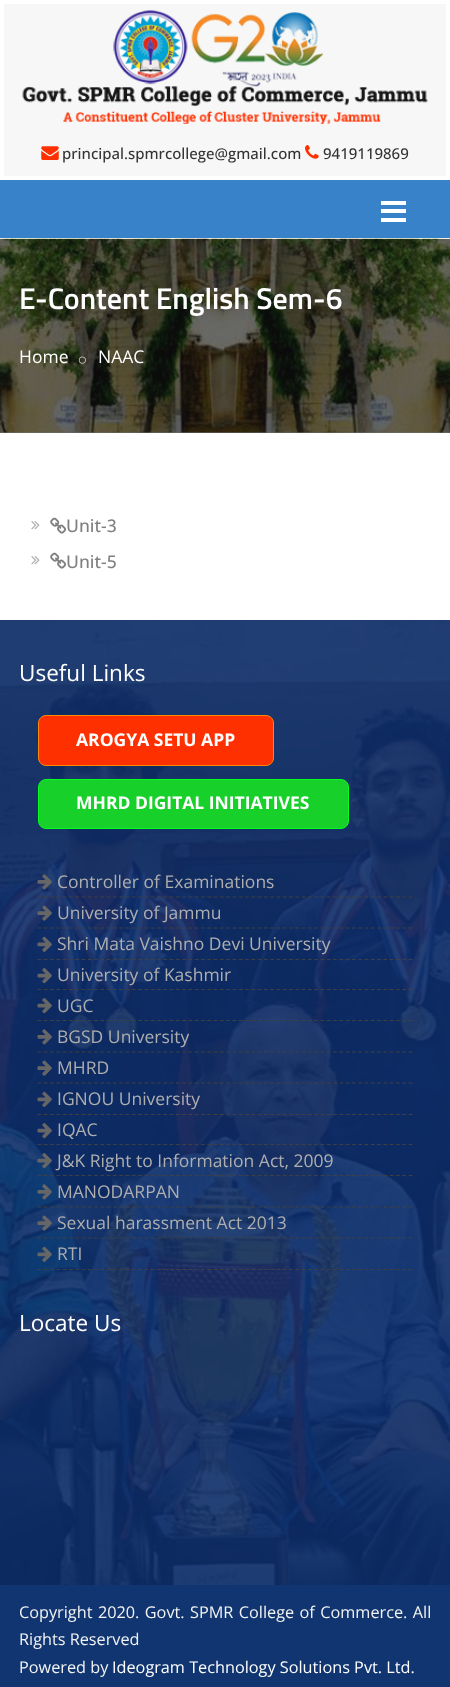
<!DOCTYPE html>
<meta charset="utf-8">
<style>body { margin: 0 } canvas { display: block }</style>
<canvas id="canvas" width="450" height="1687"></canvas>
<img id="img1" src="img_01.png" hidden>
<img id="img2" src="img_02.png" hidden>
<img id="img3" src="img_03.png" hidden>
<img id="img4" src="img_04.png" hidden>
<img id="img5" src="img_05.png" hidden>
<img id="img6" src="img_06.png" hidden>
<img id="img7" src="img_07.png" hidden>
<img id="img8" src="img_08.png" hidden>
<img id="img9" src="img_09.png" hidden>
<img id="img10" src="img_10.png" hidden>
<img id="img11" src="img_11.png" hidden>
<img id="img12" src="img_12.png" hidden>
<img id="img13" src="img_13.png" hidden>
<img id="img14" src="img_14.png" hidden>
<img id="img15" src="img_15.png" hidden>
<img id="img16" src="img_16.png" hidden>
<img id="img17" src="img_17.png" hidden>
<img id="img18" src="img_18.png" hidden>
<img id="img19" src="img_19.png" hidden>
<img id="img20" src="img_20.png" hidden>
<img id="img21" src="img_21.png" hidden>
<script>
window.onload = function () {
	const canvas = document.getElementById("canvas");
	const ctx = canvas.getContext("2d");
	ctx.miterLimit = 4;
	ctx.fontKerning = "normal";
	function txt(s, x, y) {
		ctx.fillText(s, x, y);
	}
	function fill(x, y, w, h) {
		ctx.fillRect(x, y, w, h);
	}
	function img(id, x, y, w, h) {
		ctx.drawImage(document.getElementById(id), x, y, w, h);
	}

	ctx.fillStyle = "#FFFFFF";
	fill(0, 0, 450, 1687);
	ctx.fillStyle = "#707070";
	fill(0, 432, 450, 1);
	ctx.fillStyle = "#F7F7F7";
	fill(4, 4, 442, 172);
	img("img1", 22, 10, 406, 114);
	img("img2", 41, 146, 18, 14);
	img("img3", 305, 145, 14, 14);
	ctx.fillStyle = "#3782C8";
	fill(0, 180, 450, 58);
	ctx.fillStyle = "#FFFFFF";
	fill(381, 201, 25, 4);
	fill(381, 209, 25, 4);
	fill(381, 218, 25, 4);
	img("img4", 0, 238, 450, 195);
	img("img5", 78, 356, 8, 8);
	img("img6", 31, 521, 9, 9);
	img("img7", 50, 517, 17, 17);
	img("img6", 31, 556, 9, 9);
	img("img7", 50, 552, 17, 17);
	img("img8", 0, 620, 450, 965);
	ctx.fillStyle = "#FF3000";
	ctx.beginPath();
	ctx.roundRect(38.5, 715.5, 235, 50, 7.5);
	ctx.fill();
	ctx.strokeStyle = "#FF8800";
	ctx.stroke();
	ctx.fillStyle = "#18D02A";
	ctx.beginPath();
	ctx.roundRect(38.5, 779.5, 310, 49, 7.5);
	ctx.fill();
	ctx.strokeStyle = "#05FF1D";
	ctx.stroke();
	ctx.beginPath();
	ctx.moveTo(37.5, 897);
	ctx.lineTo(412.5, 897);
	ctx.strokeStyle = "#404040";
	ctx.lineWidth = 1.2;
	ctx.setLineDash([3.75, 2.54]);
	ctx.stroke();
	img("img9", 37, 874, 15, 16);
	ctx.beginPath();
	ctx.moveTo(37.5, 928);
	ctx.lineTo(412.5, 928);
	ctx.stroke();
	img("img10", 37, 905, 15, 16);
	ctx.beginPath();
	ctx.moveTo(37.5, 959.5);
	ctx.lineTo(412.5, 959.5);
	ctx.stroke();
	img("img11", 37, 936, 15, 16);
	ctx.beginPath();
	ctx.moveTo(37.5, 989.5);
	ctx.lineTo(412.5, 989.5);
	ctx.stroke();
	img("img12", 37, 968, 15, 16);
	ctx.beginPath();
	ctx.moveTo(37.5, 1020.5);
	ctx.lineTo(412.5, 1020.5);
	ctx.stroke();
	img("img13", 37, 998, 15, 16);
	ctx.beginPath();
	ctx.moveTo(37.5, 1052);
	ctx.lineTo(412.5, 1052);
	ctx.stroke();
	img("img14", 37, 1029, 15, 16);
	ctx.beginPath();
	ctx.moveTo(37.5, 1083);
	ctx.lineTo(412.5, 1083);
	ctx.stroke();
	img("img15", 37, 1060, 15, 16);
	ctx.beginPath();
	ctx.moveTo(37.5, 1114.5);
	ctx.lineTo(412.5, 1114.5);
	ctx.stroke();
	img("img16", 37, 1091, 15, 16);
	ctx.beginPath();
	ctx.moveTo(37.5, 1144.5);
	ctx.lineTo(412.5, 1144.5);
	ctx.stroke();
	img("img17", 37, 1123, 15, 16);
	ctx.beginPath();
	ctx.moveTo(37.5, 1175.5);
	ctx.lineTo(412.5, 1175.5);
	ctx.stroke();
	img("img18", 37, 1153, 15, 16);
	ctx.beginPath();
	ctx.moveTo(37.5, 1207);
	ctx.lineTo(412.5, 1207);
	ctx.stroke();
	img("img19", 37, 1184, 15, 16);
	ctx.beginPath();
	ctx.moveTo(37.5, 1238);
	ctx.lineTo(412.5, 1238);
	ctx.stroke();
	img("img20", 37, 1215, 15, 16);
	ctx.beginPath();
	ctx.moveTo(37.5, 1269.5);
	ctx.lineTo(412.5, 1269.5);
	ctx.stroke();
	img("img21", 37, 1246, 15, 16);
	ctx.fillStyle = "#103571";
	fill(0, 1585, 450, 102);
	ctx.font = "500 15px Open Sans";
	ctx.fillStyle = "#333333";
	txt("principal.spmrcollege@gmail.com", 62, 159);
	txt("9419119869", 323, 159);
	ctx.font = "600 30px Titillium Web";
	ctx.fillStyle = "#FFFFFF";
	txt("E-Content English Sem-6", 19, 309);
	ctx.font = "17.5px Open Sans";
	txt("Home", 19, 363);
	txt("NAAC", 98, 363);
	ctx.font = "500 17.5px Open Sans";
	ctx.fillStyle = "#808080";
	txt("Unit-3", 66, 532);
	txt("Unit-5", 66, 568);
	ctx.font = "22.5px Open Sans";
	ctx.fillStyle = "#FFFFFF";
	txt("Useful Links", 19, 681);
	ctx.font = "bold 17.5px Open Sans";
	txt("AROGYA SETU APP", 76, 746);
	txt("MHRD DIGITAL INITIATIVES", 76, 809);
	ctx.font = "17.5px Open Sans";
	ctx.fillStyle = "#AEAEAE";
	txt("Controller of Examinations", 57, 888);
	txt("University of Jammu", 57, 919);
	txt("Shri Mata Vaishno Devi University", 57, 950);
	txt("University of Kashmir", 57, 981);
	txt("UGC", 57, 1012);
	txt("BGSD University", 57, 1043);
	txt("MHRD", 57, 1074);
	txt("IGNOU University", 57, 1105);
	txt("IQAC", 57, 1136);
	txt("J&K Right to Information Act, 2009", 57, 1167);
	txt("MANODARPAN", 57, 1198);
	txt("Sexual harassment Act 2013", 57, 1229);
	txt("RTI", 57, 1260);
	ctx.font = "22.5px Open Sans";
	ctx.fillStyle = "#FFFFFF";
	txt("Locate Us", 19, 1331);
	ctx.wordSpacing = "1.25px";
	ctx.font = "16.25px Open Sans";
	ctx.fillStyle = "#F3F3F3";
	txt("Copyright 2020. Govt. SPMR College of Commerce. All", 19, 1618);
	ctx.wordSpacing = "0px";
	txt("Rights Reserved", 19, 1645);
	txt("Powered by", 19, 1673);
	ctx.fillStyle = "#FFFFFF";
	txt("Ideogram Technology Solutions Pvt. Ltd.", 112, 1673);
};
</script>
